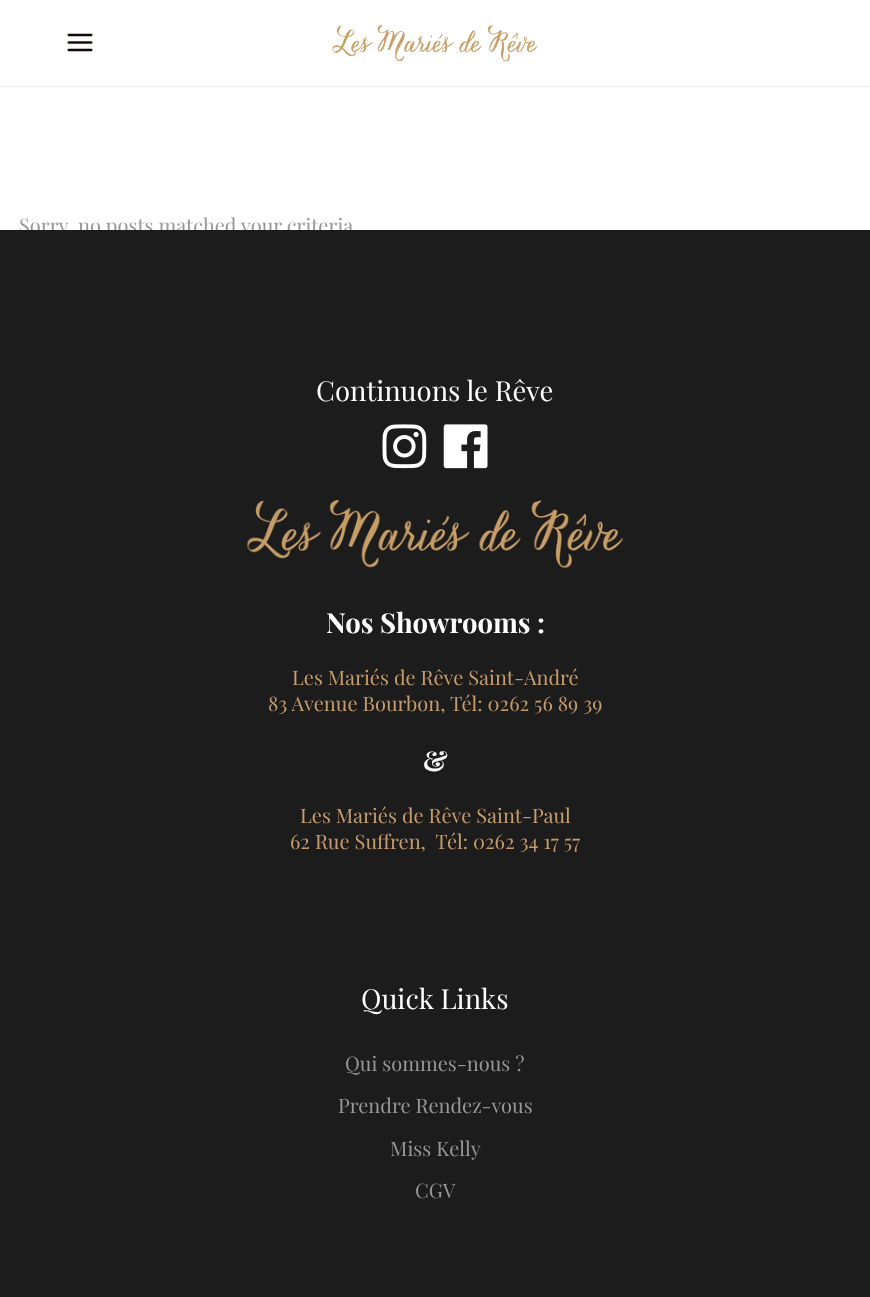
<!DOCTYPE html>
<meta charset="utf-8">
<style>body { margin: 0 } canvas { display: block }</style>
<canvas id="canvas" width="870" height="1297"></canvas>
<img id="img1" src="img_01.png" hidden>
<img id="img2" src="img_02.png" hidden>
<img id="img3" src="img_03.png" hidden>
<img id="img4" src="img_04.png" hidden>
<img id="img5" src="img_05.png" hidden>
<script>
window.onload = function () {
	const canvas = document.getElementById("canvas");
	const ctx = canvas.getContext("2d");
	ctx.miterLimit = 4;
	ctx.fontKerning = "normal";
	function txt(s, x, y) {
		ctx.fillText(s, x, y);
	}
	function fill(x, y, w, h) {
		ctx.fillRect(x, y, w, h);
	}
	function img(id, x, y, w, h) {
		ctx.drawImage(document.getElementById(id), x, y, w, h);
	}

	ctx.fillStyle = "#FFFFFF";
	fill(0, 0, 870, 1297);
	ctx.fillStyle = "#EBEBEB";
	fill(0, 86, 870, 1);
	img("img1", 67, 33, 26, 19);
	img("img2", 332, 25, 206, 37);
	ctx.font = "20px Playfair Display";
	ctx.fillStyle = "#979797";
	txt("Sorry, no posts matched your criteria", 19, 233);
	ctx.fillStyle = "#1C1C1C";
	fill(0, 230, 870, 1067);
	ctx.font = "27.5px Playfair Display";
	ctx.fillStyle = "#FFFFFF";
	txt("Continuons le Rêve", 316, 401);
	img("img3", 382, 424, 45, 45);
	img("img4", 443, 424, 45, 45);
	img("img5", 247, 500, 376, 68);
	ctx.font = "bold 27.5px Playfair Display";
	txt("Nos Showrooms :", 326, 633);
	ctx.font = "20px Playfair Display";
	ctx.fillStyle = "#C69C6B";
	txt("Les Mariés de Rêve Saint-André", 292, 685);
	txt("83 Avenue Bourbon, Tél: 0262 56 89 39", 268, 711);
	ctx.font = "bold 27.5px Playfair Display";
	ctx.fillStyle = "#FFFFFF";
	txt("&", 423, 771);
	ctx.font = "20px Playfair Display";
	ctx.fillStyle = "#C69C6B";
	txt("Les Mariés de Rêve Saint-Paul", 300, 823);
	txt("62 Rue Suffren,  Tél: 0262 34 17 57", 290, 849);
	ctx.font = "27.5px Playfair Display";
	ctx.fillStyle = "#FFFFFF";
	txt("Quick Links", 361, 1009);
	ctx.font = "20px Playfair Display";
	ctx.fillStyle = "#979797";
	txt("Qui sommes-nous ?", 345, 1071);
	txt("Prendre Rendez-vous", 338, 1113);
	txt("Miss Kelly", 390, 1156);
	txt("CGV", 415, 1198);
};
</script>
